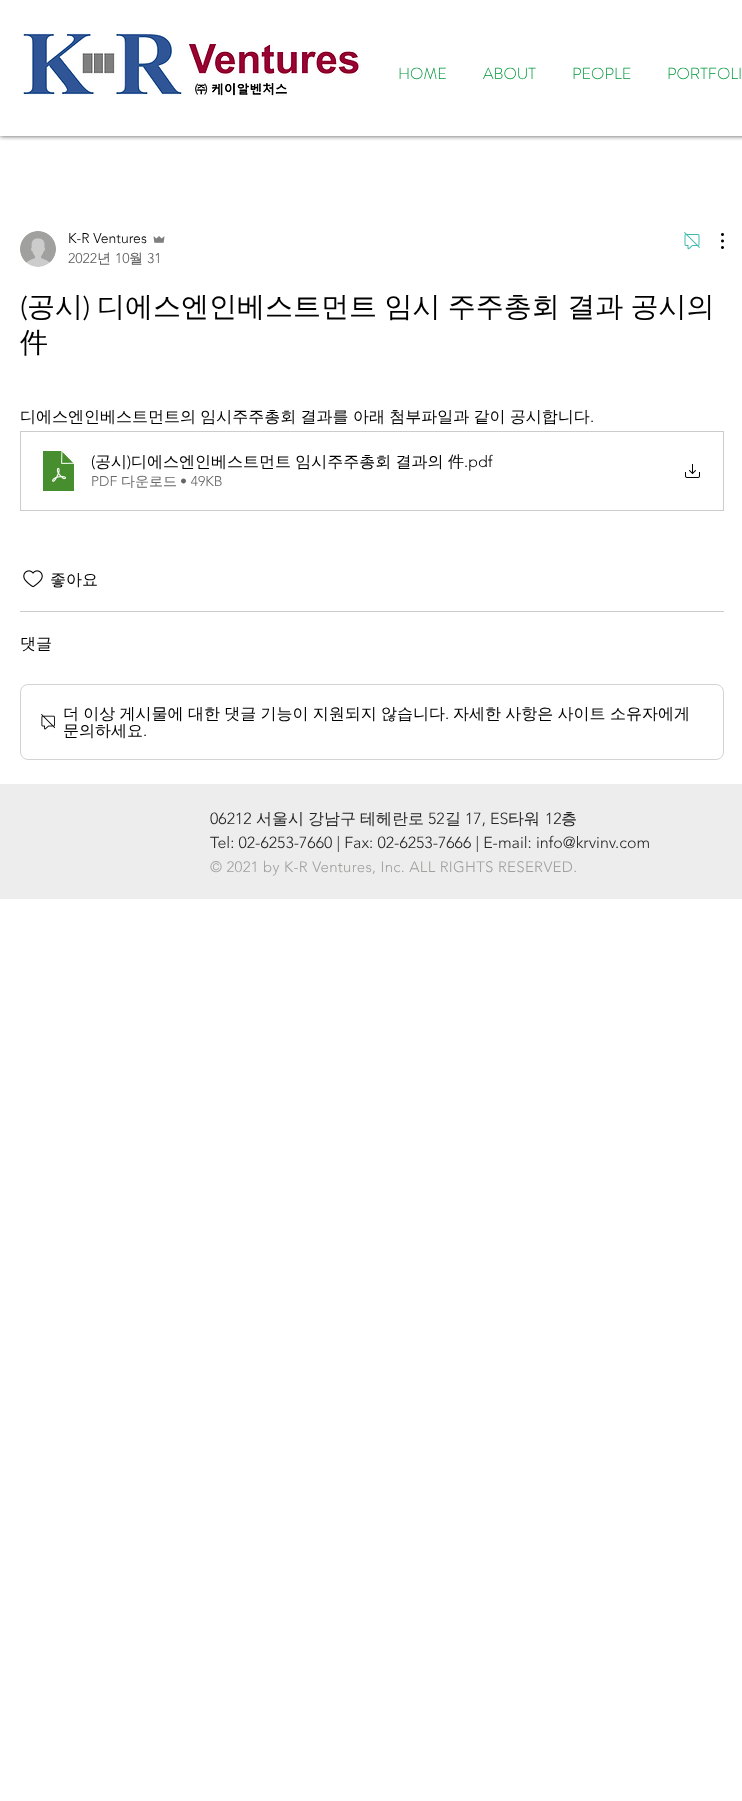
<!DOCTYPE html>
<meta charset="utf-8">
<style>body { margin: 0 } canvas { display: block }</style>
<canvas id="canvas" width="742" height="1801"></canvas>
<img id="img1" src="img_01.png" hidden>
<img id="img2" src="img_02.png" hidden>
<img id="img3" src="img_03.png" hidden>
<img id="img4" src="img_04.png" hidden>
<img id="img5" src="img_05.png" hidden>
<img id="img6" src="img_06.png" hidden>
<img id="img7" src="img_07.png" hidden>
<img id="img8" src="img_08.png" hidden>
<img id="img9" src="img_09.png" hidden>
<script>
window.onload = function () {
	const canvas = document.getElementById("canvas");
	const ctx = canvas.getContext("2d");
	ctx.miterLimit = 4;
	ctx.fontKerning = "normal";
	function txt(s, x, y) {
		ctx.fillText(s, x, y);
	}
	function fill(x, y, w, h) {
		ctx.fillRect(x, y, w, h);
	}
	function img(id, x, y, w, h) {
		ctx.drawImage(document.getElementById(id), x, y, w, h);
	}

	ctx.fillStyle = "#FFFFFF";
	fill(0, 0, 742, 1801);
	ctx.save();
	ctx.beginPath();
	ctx.rect(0, 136, 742, 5);
	ctx.clip();
	ctx.fillStyle = "rgba(0, 0, 0, 0.7)";
	ctx.filter = "blur(2.5px)";
	ctx.beginPath();
	ctx.rect(0, 0, 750, 136);
	ctx.fill();
	ctx.filter = "none";
	ctx.restore();
	img("img1", 23, 32, 338, 64);
	img("img2", 20, 231, 36, 36);
	img("img3", 153, 236, 12, 7);
	img("img4", 684, 232, 16, 18);
	img("img5", 721, 233, 3, 16);
	ctx.strokeStyle = "#CCCCCC";
	ctx.strokeRect(20.5, 431.5, 703, 79);
	img("img6", 42, 450, 33, 42);
	img("img7", 685, 464, 15, 14);
	img("img8", 23, 570, 20, 18);
	ctx.fillStyle = "#CCCCCC";
	fill(20, 611, 704, 1);
	ctx.beginPath();
	ctx.roundRect(20.5, 684.5, 703, 75, 7.5);
	ctx.strokeStyle = "#D3D3D3";
	ctx.stroke();
	img("img9", 41, 714, 14, 16);
	ctx.fillStyle = "#EDEDED";
	fill(0, 784, 742, 115);
	ctx.font = "300 16px 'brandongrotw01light'";
	ctx.fillStyle = "#00973A";
	txt("HOME", 398, 79);
	txt("ABOUT", 483, 79);
	txt("PEOPLE", 572, 79);
	txt("PORTFOLI", 667, 79);
	ctx.font = "300 14px 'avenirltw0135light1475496'";
	ctx.fillStyle = "#000000";
	txt("K-R Ventures", 68, 243);
	ctx.fillStyle = "#5C5C5C";
	txt("2022", 68, 263);
	ctx.font = "500 14px WenQuanYi Zen Hei";
	txt("년", 97, 263);
	ctx.font = "300 14px 'avenirltw0135light1475496'";
	txt("10", 115, 263);
	ctx.font = "500 14px WenQuanYi Zen Hei";
	txt("월", 129, 263);
	ctx.font = "300 14px 'avenirltw0135light1475496'";
	txt("31", 147, 263);
	ctx.font = "300 28px 'avenirltw0135light1475496'";
	ctx.fillStyle = "#000000";
	txt("(", 20, 316);
	ctx.font = "500 28px WenQuanYi Zen Hei";
	txt("공시", 27, 316);
	ctx.font = "300 28px 'avenirltw0135light1475496'";
	txt(")", 83, 316);
	ctx.wordSpacing = "-1px";
	ctx.font = "500 28px WenQuanYi Zen Hei";
	txt("디에스엔인베스트먼트 임시 주주총회 결과 공시의", 97, 316);
	ctx.wordSpacing = "0px";
	txt("件", 20, 352);
	ctx.wordSpacing = "-0.5px";
	ctx.font = "500 16px WenQuanYi Zen Hei";
	txt("디에스엔인베스트먼트의 임시주주총회 결과를 아래 첨부파일과 같이 공시합니다", 20, 422);
	ctx.wordSpacing = "0px";
	ctx.font = "300 16px 'avenirltw0135light1475496'";
	txt(".", 590, 422);
	txt("(", 91, 467);
	ctx.font = "500 16px WenQuanYi Zen Hei";
	txt("공시", 95, 467);
	ctx.font = "300 16px 'avenirltw0135light1475496'";
	txt(")", 127, 467);
	ctx.wordSpacing = "-0.5px";
	ctx.font = "500 16px WenQuanYi Zen Hei";
	txt("디에스엔인베스트먼트 임시주주총회 결과의 件", 131, 467);
	ctx.wordSpacing = "0px";
	ctx.font = "300 16px 'avenirltw0135light1475496'";
	txt(".pdf", 464, 467);
	ctx.font = "300 14px 'avenirltw0135light1475496'";
	ctx.fillStyle = "#666666";
	txt("PDF", 91, 486);
	ctx.font = "500 14px WenQuanYi Zen Hei";
	txt("다운로드", 121, 486);
	ctx.font = "300 14px 'avenirltw0135light1475496'";
	txt("• 49KB", 180, 486);
	ctx.font = "500 16px WenQuanYi Zen Hei";
	ctx.fillStyle = "#000000";
	txt("좋아요", 50, 585);
	txt("댓글", 20, 649);
	ctx.wordSpacing = "-0.5px";
	txt("더 이상 게시물에 대한 댓글 기능이 지원되지 않습니다", 63, 719);
	ctx.wordSpacing = "0px";
	ctx.font = "300 16px 'avenirltw0135light1475496'";
	txt(".", 445, 719);
	ctx.wordSpacing = "-0.5px";
	ctx.font = "500 16px WenQuanYi Zen Hei";
	txt("자세한 사항은 사이트 소유자에게", 453, 719);
	ctx.wordSpacing = "0px";
	txt("문의하세요", 63, 736);
	ctx.font = "300 16px 'avenirltw0135light1475496'";
	txt(".", 143, 736);
	ctx.fillStyle = "#252525";
	txt("06212", 210, 824);
	ctx.font = "500 16px WenQuanYi Zen Hei";
	txt("서울시", 256, 824);
	txt("강남구", 308, 824);
	txt("테헤란로", 360, 824);
	ctx.font = "300 16px 'avenirltw0135light1475496'";
	txt("52", 428, 824);
	ctx.font = "500 16px WenQuanYi Zen Hei";
	txt("길", 445, 824);
	ctx.font = "300 16px 'avenirltw0135light1475496'";
	txt("17, ES", 465, 824);
	ctx.font = "500 16px WenQuanYi Zen Hei";
	txt("타워", 508, 824);
	ctx.font = "300 16px 'avenirltw0135light1475496'";
	txt("12", 545, 824);
	ctx.font = "500 16px WenQuanYi Zen Hei";
	txt("층", 561, 824);
	ctx.font = "300 16px 'avenirltw0135light1475496'";
	txt("Tel: 02-6253-7660 | Fax: 02-6253-7666 | E-mail: info@krvinv.com", 210, 848);
	ctx.letterSpacing = "0.3px";
	ctx.font = "300 15px 'avenirltw0135light1475496'";
	ctx.fillStyle = "#A0A09F";
	txt("© 2021 by K-R Ventures, Inc. ALL RIGHTS RESERVED.", 210, 872);
};
</script>
